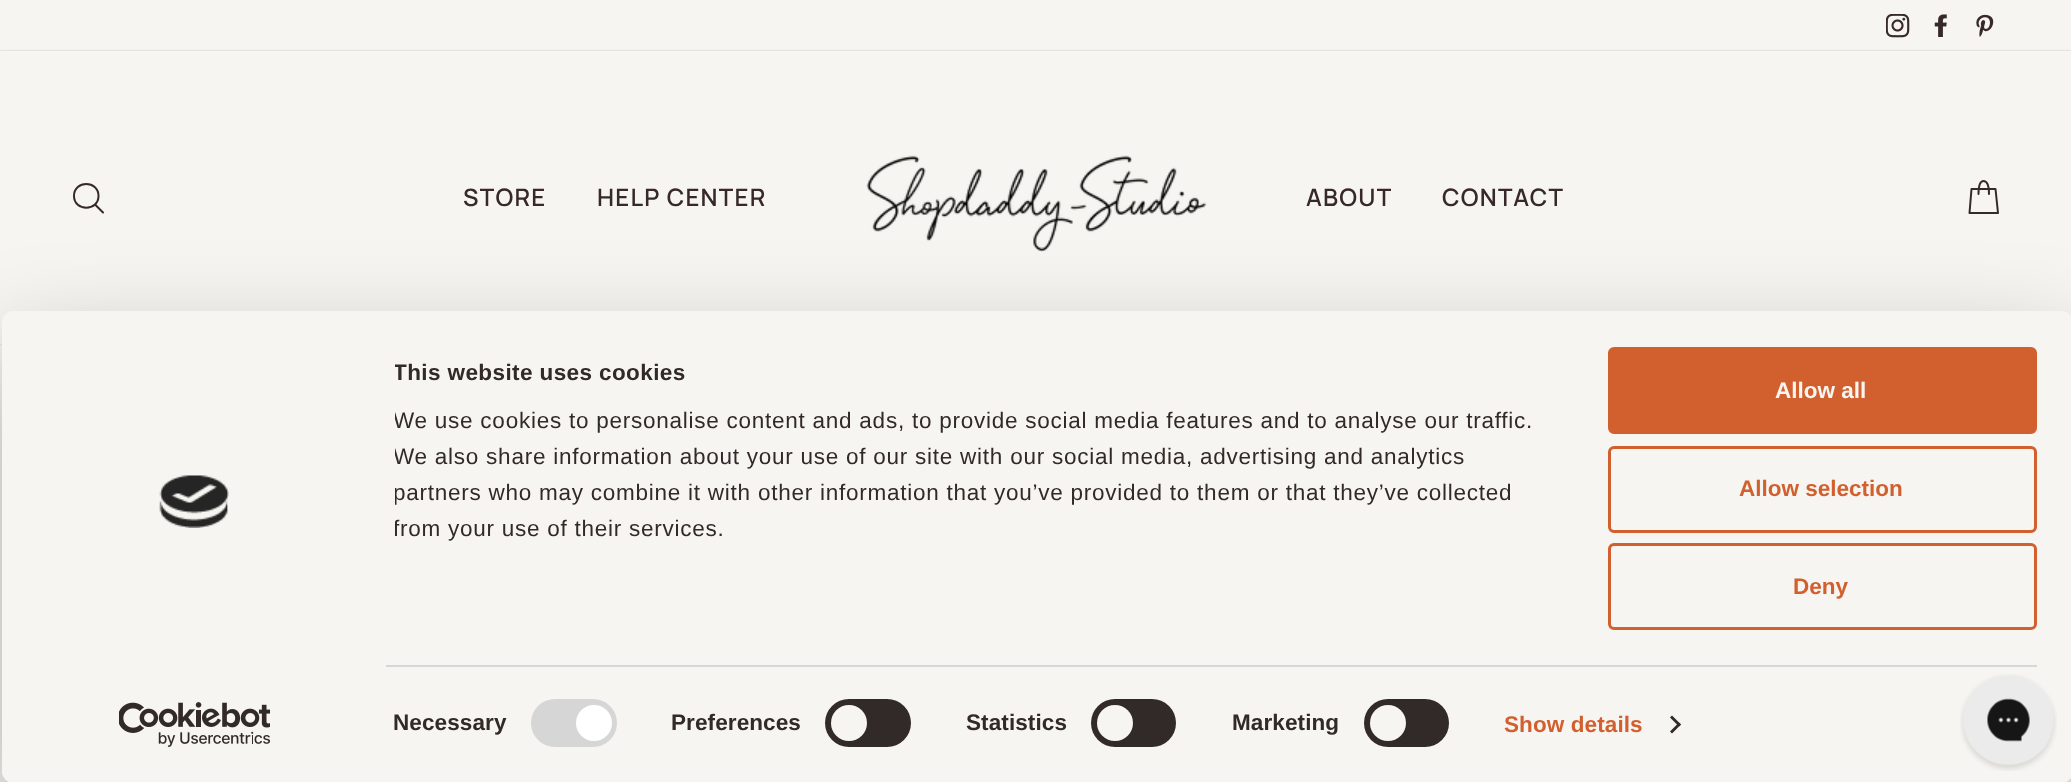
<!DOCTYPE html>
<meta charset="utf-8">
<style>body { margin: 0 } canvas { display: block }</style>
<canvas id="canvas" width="2071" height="782"></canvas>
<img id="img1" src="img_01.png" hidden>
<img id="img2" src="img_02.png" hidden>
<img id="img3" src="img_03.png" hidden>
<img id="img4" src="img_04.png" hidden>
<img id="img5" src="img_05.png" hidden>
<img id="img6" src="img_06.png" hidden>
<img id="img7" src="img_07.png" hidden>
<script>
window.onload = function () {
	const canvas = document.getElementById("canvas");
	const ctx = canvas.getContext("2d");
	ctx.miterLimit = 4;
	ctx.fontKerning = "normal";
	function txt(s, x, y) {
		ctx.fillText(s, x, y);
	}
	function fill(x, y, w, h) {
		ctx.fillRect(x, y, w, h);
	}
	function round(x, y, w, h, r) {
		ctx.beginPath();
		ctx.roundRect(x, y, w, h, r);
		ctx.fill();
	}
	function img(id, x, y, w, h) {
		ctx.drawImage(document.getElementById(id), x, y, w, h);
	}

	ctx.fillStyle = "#F6F5F1";
	fill(0, 0, 2071, 782);
	img("img1", 1886, 14, 24, 24);
	img("img2", 1934, 14, 13, 23);
	img("img3", 1976, 14, 18, 23);
	ctx.fillStyle = "rgba(0, 0, 0, 0.2)";
	ctx.filter = "blur(1px)";
	ctx.beginPath();
	ctx.rect(0, 51, 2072, 293);
	ctx.fill();
	ctx.filter = "none";
	ctx.fillStyle = "#F6F5F1";
	fill(0, 51, 2071, 293);
	ctx.beginPath();
	ctx.moveTo(98.5, 196);
	ctx.bezierCurveTo(98.5, 211.5, 74, 211.5, 74, 196);
	ctx.bezierCurveTo(74, 180, 98.5, 180, 98.5, 196);
	ctx.closePath();
	ctx.moveTo(103, 212.5);
	ctx.lineTo(95, 204.5);
	ctx.strokeStyle = "#382929";
	ctx.lineWidth = 2;
	ctx.lineCap = "round";
	ctx.lineJoin = "round";
	ctx.stroke();
	img("img4", 866, 155, 341, 97);
	ctx.beginPath();
	ctx.moveTo(1978.5, 194);
	ctx.bezierCurveTo(1978.5, 183.5, 1980.5, 181, 1983.5, 181);
	ctx.bezierCurveTo(1986.5, 181, 1989, 183.5, 1989, 194);
	ctx.moveTo(1971.5, 189);
	ctx.lineTo(1995.5, 189);
	ctx.lineTo(1998, 213);
	ctx.lineTo(1969.5, 213);
	ctx.closePath();
	ctx.stroke();
	ctx.save();
	ctx.beginPath();
	ctx.moveTo(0, 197);
	ctx.lineTo(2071, 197);
	ctx.lineTo(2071, 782);
	ctx.lineTo(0, 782);
	ctx.closePath();
	ctx.moveTo(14, 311);
	ctx.lineTo(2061, 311);
	ctx.bezierCurveTo(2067.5, 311, 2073, 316.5, 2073, 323);
	ctx.lineTo(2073, 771);
	ctx.bezierCurveTo(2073, 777.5, 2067.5, 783, 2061, 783);
	ctx.lineTo(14, 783);
	ctx.bezierCurveTo(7.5, 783, 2, 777.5, 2, 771);
	ctx.lineTo(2, 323);
	ctx.bezierCurveTo(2, 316.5, 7.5, 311, 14, 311);
	ctx.closePath();
	ctx.clip("evenodd");
	ctx.fillStyle = "rgba(0, 0, 0, 0.3)";
	ctx.filter = "blur(52.5px)";
	ctx.beginPath();
	ctx.roundRect(2, 356, 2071, 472, 12);
	ctx.fill();
	ctx.filter = "none";
	ctx.restore();
	round(2, 311, 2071, 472, 12);
	img("img5", 159, 475, 70, 53);
	img("img6", 119, 702, 151, 45);
	ctx.fillStyle = "#D6D6D6";
	fill(386, 665, 1651, 2);
	round(531, 699, 86, 48, 24);
	ctx.fillStyle = "#FFFFFF";
	ctx.beginPath();
	ctx.arc(594, 723, 18, 0, Math.PI * 2);
	ctx.fill();
	ctx.fillStyle = "#322929";
	round(825, 699, 86, 48, 24);
	ctx.fillStyle = "#F6F5F1";
	ctx.beginPath();
	ctx.arc(849, 723, 18, 0, Math.PI * 2);
	ctx.fill();
	ctx.fillStyle = "#322929";
	round(1091, 699, 85, 48, 24);
	ctx.fillStyle = "#F6F5F1";
	ctx.beginPath();
	ctx.arc(1115, 723, 18, 0, Math.PI * 2);
	ctx.fill();
	ctx.fillStyle = "#322929";
	round(1364, 699, 85, 48, 24);
	ctx.fillStyle = "#F6F5F1";
	ctx.beginPath();
	ctx.arc(1388, 723, 18, 0, Math.PI * 2);
	ctx.fill();
	ctx.fillStyle = "#322929";
	ctx.beginPath();
	ctx.moveTo(1672, 715.5);
	ctx.lineTo(1681, 724.5);
	ctx.lineTo(1679, 726.5);
	ctx.lineTo(1670, 717.5);
	ctx.closePath();
	ctx.fill();
	ctx.beginPath();
	ctx.moveTo(1679, 722.5);
	ctx.lineTo(1681, 724.5);
	ctx.lineTo(1672, 733.5);
	ctx.lineTo(1670, 731.5);
	ctx.closePath();
	ctx.fill();
	ctx.fillStyle = "#D2602F";
	ctx.beginPath();
	ctx.roundRect(1609.5, 348.5, 426, 84, 4.5);
	ctx.fill();
	ctx.strokeStyle = "#D2602F";
	ctx.lineWidth = 3;
	ctx.lineJoin = "miter";
	ctx.stroke();
	ctx.beginPath();
	ctx.roundRect(1609.5, 447.5, 426, 84, 4.5);
	ctx.stroke();
	ctx.beginPath();
	ctx.roundRect(1609.5, 544.5, 426, 84, 4.5);
	ctx.stroke();
	img("img7", 1960, 674, 97, 97);
	ctx.letterSpacing = "1.25px";
	ctx.font = "600 24px Manrope";
	ctx.fillStyle = "#382929";
	txt("STORE", 463, 206);
	txt("HELP CENTER", 597, 206);
	txt("ABOUT", 1306, 206);
	txt("CONTACT", 1442, 206);
	ctx.save();
	ctx.beginPath();
	ctx.rect(395, 356, 1170, 265);
	ctx.clip();
	ctx.letterSpacing = "0.4px";
	ctx.font = "bold 22.5px Liberation Sans";
	ctx.fillStyle = "#322929";
	txt("This website uses cookies", 393, 380);
	ctx.letterSpacing = "0.75px";
	ctx.font = "22.5px Liberation Sans";
	txt("We use cookies to personalise content and ads, to provide social media features and to analyse our traffic.", 393, 428);
	txt("We also share information about your use of our site with our social media, advertising and analytics", 393, 464);
	txt("partners who may combine it with other information that you’ve provided to them or that they’ve collected", 393, 500);
	txt("from your use of their services.", 393, 536);
	ctx.restore();
	ctx.letterSpacing = "0.1px";
	ctx.font = "bold 22.5px Liberation Sans";
	ctx.fillStyle = "#322929";
	txt("Necessary", 393, 730);
	txt("Preferences", 671, 730);
	txt("Statistics", 966, 730);
	txt("Marketing", 1232, 730);
	ctx.fillStyle = "#D2602F";
	txt("Show details", 1504, 732);
	ctx.letterSpacing = "0px";
	ctx.fillStyle = "#F6F5F1";
	txt("Allow all", 1775, 398);
	ctx.fillStyle = "#D2602F";
	txt("Allow selection", 1739, 496);
	txt("Deny", 1793, 594);
};
</script>
